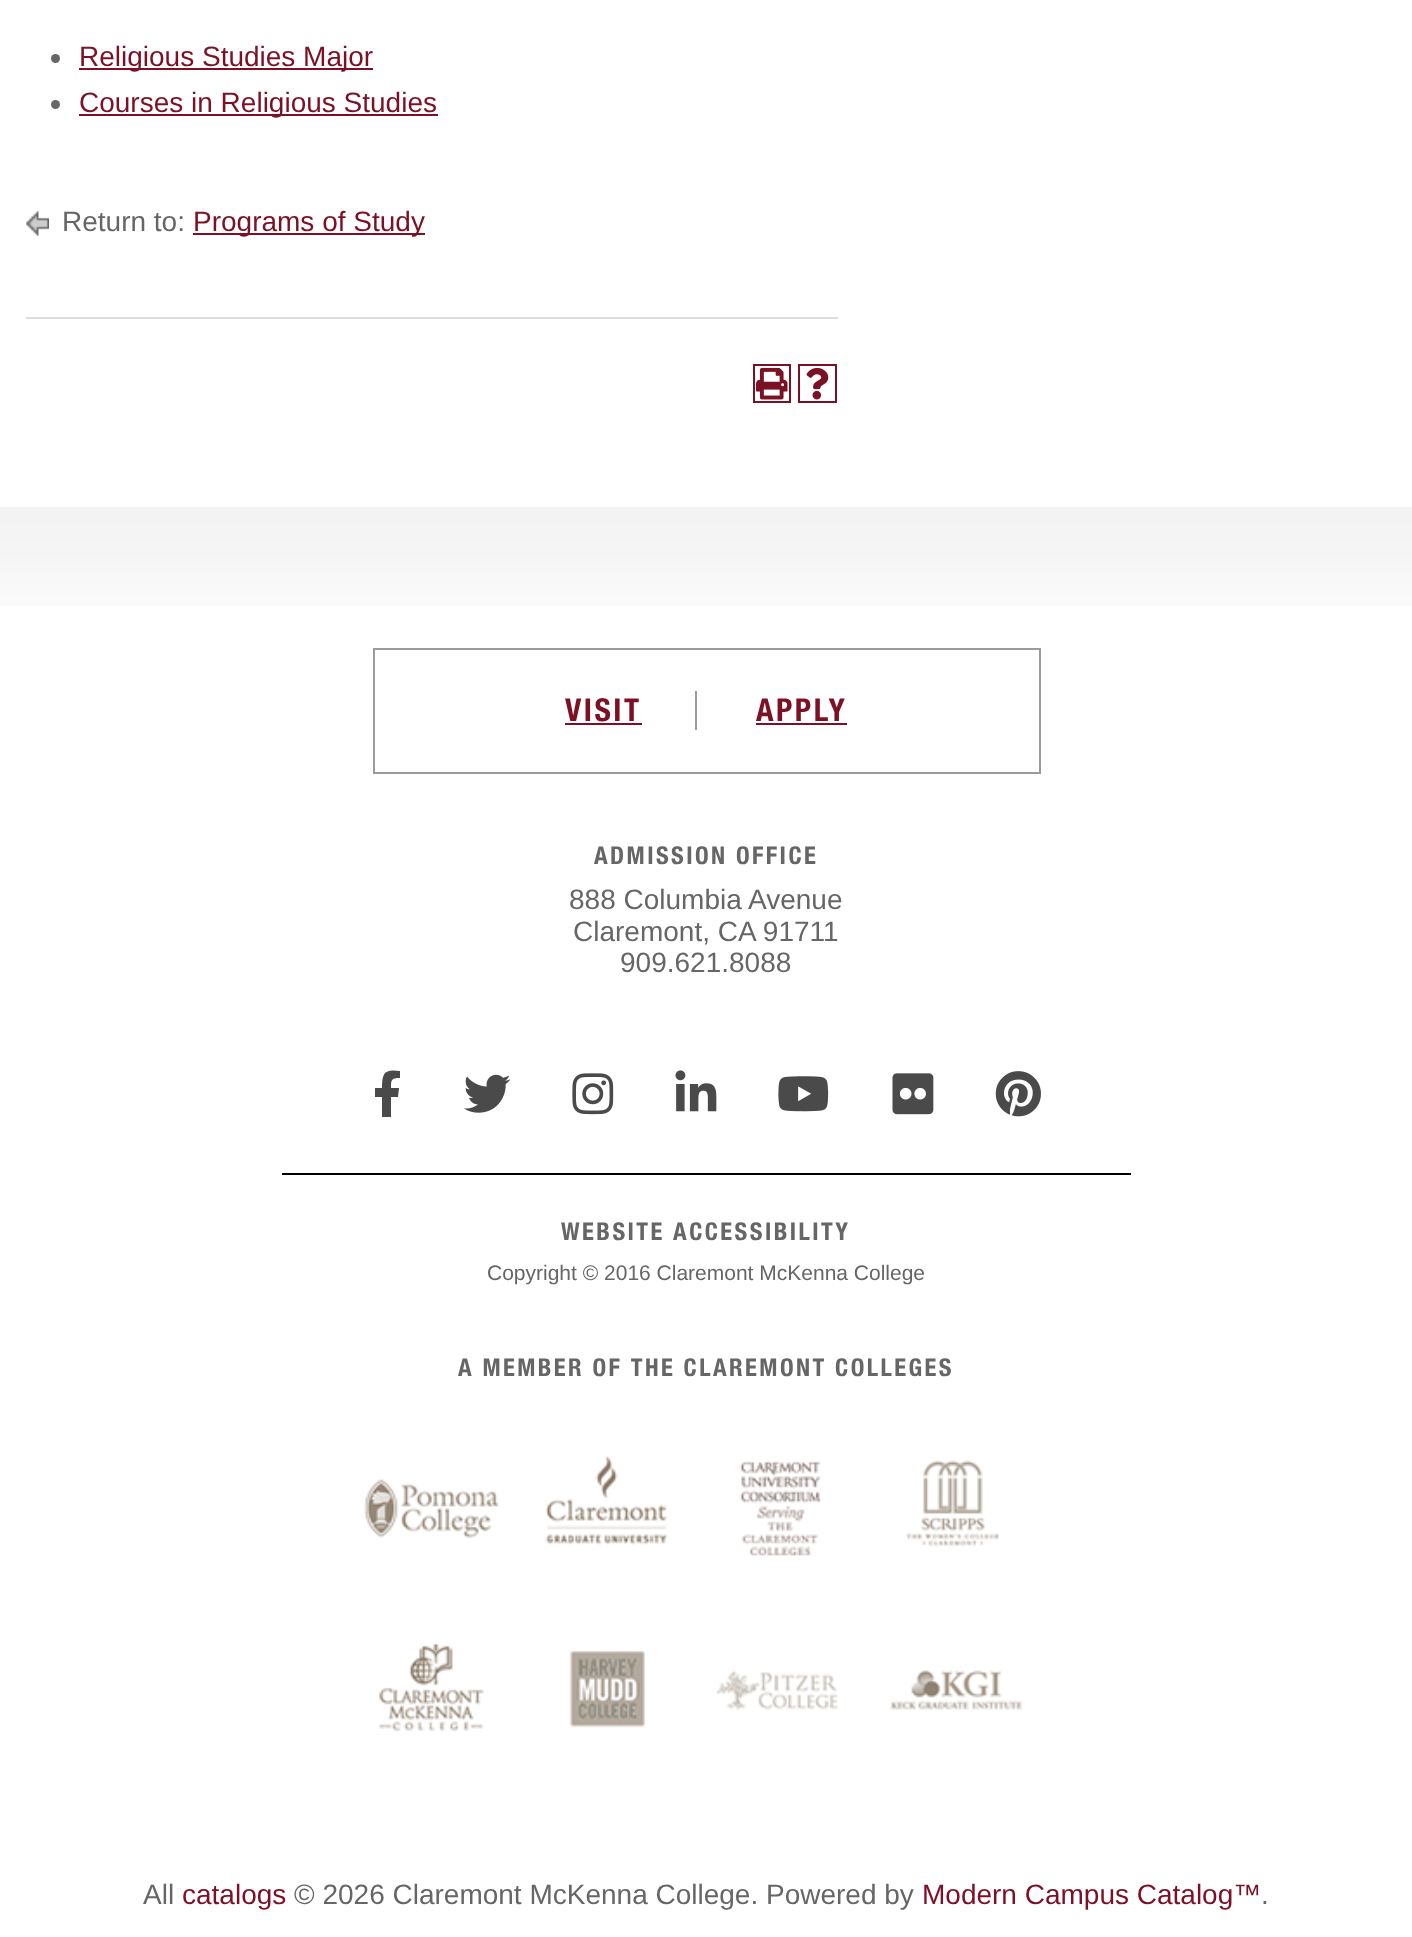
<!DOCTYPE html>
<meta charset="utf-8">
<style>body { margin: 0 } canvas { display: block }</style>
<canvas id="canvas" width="1412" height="1937"></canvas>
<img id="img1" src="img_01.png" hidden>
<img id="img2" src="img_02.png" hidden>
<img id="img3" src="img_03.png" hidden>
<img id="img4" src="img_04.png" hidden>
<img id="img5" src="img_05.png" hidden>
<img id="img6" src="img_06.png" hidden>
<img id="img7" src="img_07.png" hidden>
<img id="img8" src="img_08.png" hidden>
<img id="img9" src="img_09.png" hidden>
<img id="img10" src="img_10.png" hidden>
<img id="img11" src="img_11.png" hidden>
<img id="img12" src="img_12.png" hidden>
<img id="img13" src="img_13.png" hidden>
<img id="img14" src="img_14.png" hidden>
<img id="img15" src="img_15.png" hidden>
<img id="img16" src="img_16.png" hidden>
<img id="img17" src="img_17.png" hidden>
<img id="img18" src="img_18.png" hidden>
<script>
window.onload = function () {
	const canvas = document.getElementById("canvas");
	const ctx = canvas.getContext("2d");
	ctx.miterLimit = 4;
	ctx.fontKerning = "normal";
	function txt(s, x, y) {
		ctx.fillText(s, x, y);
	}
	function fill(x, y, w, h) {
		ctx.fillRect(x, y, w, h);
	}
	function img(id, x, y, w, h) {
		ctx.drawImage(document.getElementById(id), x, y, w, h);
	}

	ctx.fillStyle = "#FFFFFF";
	fill(0, 0, 1412, 1937);
	ctx.fillStyle = "#666666";
	ctx.beginPath();
	ctx.arc(55.5, 58.5, 4.5, 0, Math.PI * 2);
	ctx.fill();
	ctx.fillStyle = "#7C1125";
	fill(79, 68, 294, 2);
	ctx.fillStyle = "#666666";
	ctx.beginPath();
	ctx.arc(55.5, 104.5, 4.5, 0, Math.PI * 2);
	ctx.fill();
	ctx.fillStyle = "#7C1125";
	fill(79, 114, 359, 2);
	img("img1", 26, 211, 23, 25);
	fill(193, 233, 232, 2);
	ctx.fillStyle = "#DDDDDD";
	fill(26, 317, 812, 2);
	ctx.strokeStyle = "#7B1125";
	ctx.lineWidth = 2;
	ctx.strokeRect(754, 365, 36, 37);
	img("img2", 756, 367, 32, 33);
	ctx.strokeRect(799, 365, 37, 37);
	img("img3", 806, 367, 23, 33);
	img("img4", 0, 507, 1412, 99);
	ctx.strokeStyle = "#9B9B9B";
	ctx.strokeRect(374, 649, 666, 124);
	ctx.fillStyle = "#9B9B9B";
	fill(695, 691, 2, 39);
	ctx.fillStyle = "#7C1125";
	fill(565, 723, 77, 2);
	fill(756, 723, 91, 2);
	ctx.fillStyle = "#000000";
	fill(282, 1173, 849, 2);
	ctx.fillStyle = "#4A4A4A";
	ctx.beginPath();
	ctx.moveTo(398, 1097);
	ctx.lineTo(391, 1097);
	ctx.lineTo(391, 1117);
	ctx.lineTo(382, 1117);
	ctx.lineTo(382, 1097);
	ctx.lineTo(375, 1097);
	ctx.lineTo(375, 1088);
	ctx.lineTo(382, 1088);
	ctx.bezierCurveTo(382, 1072, 385, 1069, 400, 1071);
	ctx.lineTo(400, 1078);
	ctx.bezierCurveTo(391, 1078, 391, 1080, 391, 1088);
	ctx.lineTo(399, 1088);
	ctx.closePath();
	ctx.fill();
	img("img5", 464, 1074, 47, 39);
	img("img6", 572, 1073, 42, 42);
	img("img7", 675, 1070, 42, 42);
	img("img8", 778, 1076, 51, 36);
	img("img9", 892, 1073, 42, 42);
	img("img10", 995, 1071, 46, 46);
	img("img11", 363, 1479, 136, 60);
	img("img12", 545, 1455, 123, 90);
	img("img13", 739, 1460, 82, 96);
	img("img14", 906, 1460, 93, 87);
	img("img15", 378, 1642, 106, 90);
	img("img16", 569, 1650, 76, 78);
	img("img17", 716, 1670, 123, 40);
	img("img18", 890, 1670, 133, 40);
	ctx.font = "28px Liberation Sans";
	ctx.fillStyle = "#7C1125";
	txt("Religious Studies Major", 79, 66);
	txt("Courses in Religious Studies", 79, 112);
	ctx.fillStyle = "#666666";
	txt("Return to:", 62, 231);
	ctx.fillStyle = "#7C1125";
	txt("Programs of Study", 193, 231);
	ctx.letterSpacing = "2.5px";
	ctx.font = "bold 31.5px 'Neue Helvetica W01'";
	txt("VISIT", 565, 721);
	txt("APPLY", 756, 721);
	ctx.letterSpacing = "2.45px";
	ctx.font = "bold 24.5px 'Neue Helvetica W01'";
	ctx.fillStyle = "#666666";
	txt("ADMISSION OFFICE", 594, 864);
	ctx.letterSpacing = "0px";
	ctx.font = "28px Liberation Sans";
	txt("888 Columbia Avenue", 569, 909);
	txt("Claremont, CA 91711", 573, 941);
	txt("909.621.8088", 620, 972);
	ctx.letterSpacing = "2.45px";
	ctx.font = "bold 24.5px 'Neue Helvetica W01'";
	txt("WEBSITE ACCESSIBILITY", 561, 1240);
	ctx.letterSpacing = "0px";
	ctx.font = "21px Liberation Sans";
	txt("Copyright © 2016 Claremont McKenna College", 487, 1280);
	ctx.letterSpacing = "2.45px";
	ctx.font = "bold 24.5px 'Neue Helvetica W01'";
	txt("A MEMBER OF THE CLAREMONT COLLEGES", 458, 1376);
	ctx.letterSpacing = "0px";
	ctx.font = "28px Liberation Sans";
	txt("All", 143, 1904);
	ctx.fillStyle = "#7C1125";
	txt("catalogs", 182, 1904);
	ctx.fillStyle = "#666666";
	txt("© 2026 Claremont McKenna College. Powered by", 294, 1904);
	ctx.fillStyle = "#7C1125";
	txt("Modern Campus Catalog™", 922, 1904);
	ctx.fillStyle = "#666666";
	txt(".", 1261, 1904);
};
</script>
